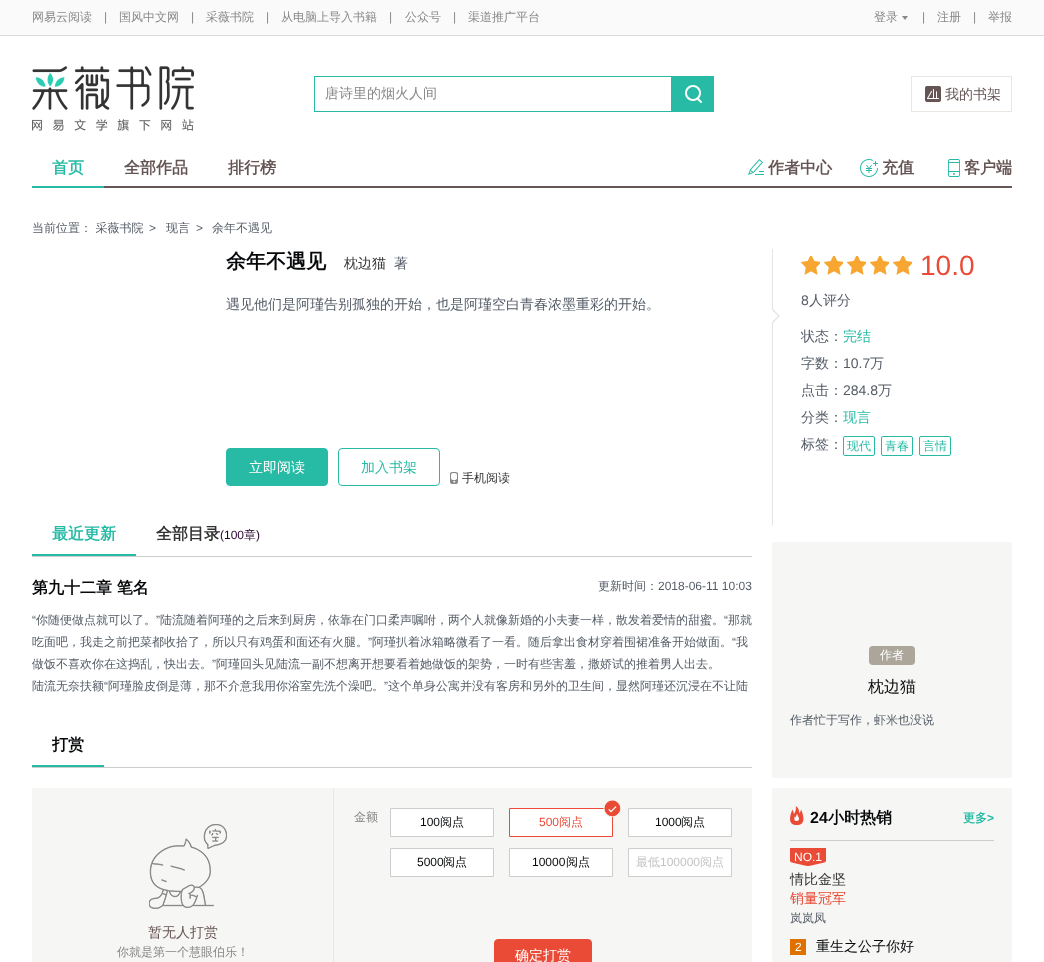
<!DOCTYPE html>
<meta charset="utf-8">
<style>body { margin: 0 } canvas { display: block }</style>
<canvas id="canvas" width="1044" height="962"></canvas>
<img id="img1" src="img_01.png" hidden>
<img id="img2" src="img_02.png" hidden>
<img id="img3" src="img_03.png" hidden>
<img id="img4" src="img_04.png" hidden>
<img id="img5" src="img_05.png" hidden>
<img id="img6" src="img_06.png" hidden>
<img id="img7" src="img_07.png" hidden>
<img id="img8" src="img_08.png" hidden>
<img id="img9" src="img_09.png" hidden>
<img id="img10" src="img_10.png" hidden>
<img id="img11" src="img_11.png" hidden>
<img id="img12" src="img_12.png" hidden>
<img id="img13" src="img_13.png" hidden>
<script>
window.onload = function () {
	const canvas = document.getElementById("canvas");
	const ctx = canvas.getContext("2d");
	ctx.miterLimit = 4;
	ctx.fontKerning = "normal";
	function txt(s, x, y) {
		ctx.fillText(s, x, y);
	}
	function fill(x, y, w, h) {
		ctx.fillRect(x, y, w, h);
	}
	function round(x, y, w, h, r) {
		ctx.beginPath();
		ctx.roundRect(x, y, w, h, r);
		ctx.fill();
	}
	function img(id, x, y, w, h) {
		ctx.drawImage(document.getElementById(id), x, y, w, h);
	}

	ctx.fillStyle = "#FFFFFF";
	fill(0, 0, 1044, 962);
	ctx.fillStyle = "#FAFAFA";
	fill(0, 0, 1044, 35);
	ctx.fillStyle = "#DCDCDC";
	fill(0, 35, 1044, 1);
	img("img1", 902, 16, 6, 4);
	img("img2", 32, 66, 162, 65);
	ctx.strokeStyle = "#27BBA6";
	ctx.strokeRect(314.5, 76.5, 357, 35);
	ctx.fillStyle = "#27BBA6";
	fill(672, 76, 42, 36);
	img("img3", 685, 85, 17, 18);
	img("img4", 925, 86, 16, 16);
	ctx.strokeStyle = "#EBE6E1";
	ctx.strokeRect(911.5, 76.5, 100, 35);
	ctx.fillStyle = "#665656";
	fill(104, 186, 908, 2);
	ctx.fillStyle = "#27BBA6";
	fill(32, 186, 72, 2);
	img("img5", 748, 159, 16, 16);
	img("img6", 860, 159, 18, 18);
	img("img7", 948, 159, 12, 18);
	ctx.beginPath();
	ctx.roundRect(226.5, 448.5, 101, 37, 3.5);
	ctx.fill();
	ctx.strokeStyle = "#27BBA6";
	ctx.stroke();
	ctx.beginPath();
	ctx.roundRect(338.5, 448.5, 101, 37, 3.5);
	ctx.stroke();
	img("img8", 450, 472, 8, 12);
	ctx.fillStyle = "#CDCDCD";
	fill(32, 556, 720, 1);
	ctx.fillStyle = "#27BBA6";
	fill(32, 554, 104, 2);
	ctx.fillStyle = "#CDCDCD";
	fill(32, 767, 720, 1);
	ctx.fillStyle = "#27BBA6";
	fill(32, 765, 72, 2);
	ctx.fillStyle = "#F6F6F4";
	fill(32, 788, 720, 174);
	ctx.fillStyle = "#EBE6E1";
	fill(333, 788, 1, 174);
	img("img9", 149, 824, 78, 85);
	ctx.fillStyle = "#FFFFFF";
	ctx.beginPath();
	ctx.rect(390.5, 808.5, 103, 28);
	ctx.fill();
	ctx.strokeStyle = "#CDCDCD";
	ctx.stroke();
	ctx.beginPath();
	ctx.rect(509.5, 808.5, 103, 28);
	ctx.fill();
	ctx.strokeStyle = "#EA4B36";
	ctx.stroke();
	img("img10", 603, 800, 18, 17);
	ctx.beginPath();
	ctx.rect(628.5, 808.5, 103, 28);
	ctx.fill();
	ctx.strokeStyle = "#CDCDCD";
	ctx.stroke();
	ctx.beginPath();
	ctx.rect(390.5, 848.5, 103, 28);
	ctx.fill();
	ctx.stroke();
	ctx.beginPath();
	ctx.rect(509.5, 848.5, 103, 28);
	ctx.fill();
	ctx.stroke();
	ctx.beginPath();
	ctx.rect(628.5, 848.5, 103, 28);
	ctx.fill();
	ctx.stroke();
	ctx.fillStyle = "#EA4B36";
	ctx.beginPath();
	ctx.roundRect(494.5, 939.5, 97, 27, 3.5);
	ctx.fill();
	ctx.strokeStyle = "#EA4B36";
	ctx.stroke();
	ctx.fillStyle = "#E5E5E5";
	fill(772, 249, 1, 277);
	img("img11", 801, 256, 19, 19);
	img("img11", 824, 256, 19, 19);
	img("img11", 847, 256, 19, 19);
	img("img11", 870, 256, 19, 19);
	img("img11", 893, 256, 19, 19);
	ctx.beginPath();
	ctx.moveTo(773, 323);
	ctx.lineTo(773, 309);
	ctx.lineTo(780, 316);
	ctx.closePath();
	ctx.fill();
	ctx.fillStyle = "#FFFFFF";
	ctx.beginPath();
	ctx.moveTo(772, 322);
	ctx.lineTo(772, 310);
	ctx.lineTo(778, 316);
	ctx.closePath();
	ctx.fill();
	ctx.beginPath();
	ctx.roundRect(843.5, 436.5, 31, 19, 1.5);
	ctx.strokeStyle = "#27BBA6";
	ctx.stroke();
	ctx.beginPath();
	ctx.roundRect(881.5, 436.5, 31, 19, 1.5);
	ctx.stroke();
	ctx.beginPath();
	ctx.roundRect(919.5, 436.5, 31, 19, 1.5);
	ctx.stroke();
	ctx.fillStyle = "#F6F6F4";
	fill(772, 542, 240, 236);
	ctx.fillStyle = "#ABA59A";
	round(869, 646, 46, 19, 4);
	ctx.fillStyle = "#F6F6F4";
	fill(772, 788, 240, 174);
	ctx.fillStyle = "#CDCDCD";
	fill(790, 840, 204, 1);
	img("img12", 790, 806, 14, 20);
	img("img13", 790, 848, 36, 18);
	ctx.fillStyle = "#E07100";
	fill(790, 939, 16, 16);
	ctx.font = "500 12px WenQuanYi Zen Hei";
	ctx.fillStyle = "#888888";
	txt("网易云阅读", 32, 21);
	ctx.font = "12px Liberation Sans";
	txt("|", 104, 21);
	ctx.font = "500 12px WenQuanYi Zen Hei";
	txt("国风中文网", 119, 21);
	ctx.font = "12px Liberation Sans";
	txt("|", 191, 21);
	ctx.font = "500 12px WenQuanYi Zen Hei";
	txt("采薇书院", 206, 21);
	ctx.font = "12px Liberation Sans";
	txt("|", 266, 21);
	ctx.font = "500 12px WenQuanYi Zen Hei";
	txt("从电脑上导入书籍", 281, 21);
	ctx.font = "12px Liberation Sans";
	txt("|", 389, 21);
	ctx.font = "500 12px WenQuanYi Zen Hei";
	txt("公众号", 405, 21);
	ctx.font = "12px Liberation Sans";
	txt("|", 453, 21);
	ctx.font = "500 12px WenQuanYi Zen Hei";
	txt("渠道推广平台", 468, 21);
	txt("登录", 874, 21);
	ctx.font = "12px Liberation Sans";
	txt("|", 922, 21);
	ctx.font = "500 12px WenQuanYi Zen Hei";
	txt("注册", 937, 21);
	ctx.font = "12px Liberation Sans";
	txt("|", 973, 21);
	ctx.font = "500 12px WenQuanYi Zen Hei";
	txt("举报", 988, 21);
	ctx.font = "500 14px WenQuanYi Zen Hei";
	txt("唐诗里的烟火人间", 325, 98);
	ctx.fillStyle = "#665555";
	txt("我的书架", 945, 99);
	ctx.font = "bold 16px WenQuanYi Zen Hei";
	ctx.fillStyle = "#27BBA6";
	txt("首页", 52, 173);
	ctx.fillStyle = "#665555";
	txt("全部作品", 124, 173);
	txt("排行榜", 228, 173);
	txt("作者中心", 768, 173);
	txt("充值", 882, 173);
	txt("客户端", 964, 173);
	ctx.font = "500 12px WenQuanYi Zen Hei";
	ctx.fillStyle = "#545C66";
	txt("当前位置： 采薇书院", 32, 232);
	ctx.font = "12px Liberation Sans";
	txt(">", 149, 232);
	ctx.font = "500 12px WenQuanYi Zen Hei";
	txt("现言", 166, 232);
	ctx.font = "12px Liberation Sans";
	txt(">", 196, 232);
	ctx.font = "500 12px WenQuanYi Zen Hei";
	txt("余年不遇见", 212, 232);
	ctx.font = "bold 20px WenQuanYi Zen Hei";
	ctx.fillStyle = "#06080A";
	txt("余年不遇见", 226, 268);
	ctx.font = "500 14px WenQuanYi Zen Hei";
	ctx.fillStyle = "#333333";
	txt("枕边猫", 344, 268);
	ctx.fillStyle = "#545C66";
	txt("著", 394, 268);
	txt("遇见他们是阿瑾告别孤独的开始，也是阿瑾空白青春浓墨重彩的开始。", 226, 309);
	ctx.fillStyle = "#FFFFFF";
	txt("立即阅读", 249, 472);
	ctx.fillStyle = "#27BBA6";
	txt("加入书架", 361, 472);
	ctx.font = "500 12px WenQuanYi Zen Hei";
	ctx.fillStyle = "#333333";
	txt("手机阅读", 462, 482);
	ctx.font = "bold 16px WenQuanYi Zen Hei";
	ctx.fillStyle = "#27BBA6";
	txt("最近更新", 52, 539);
	ctx.fillStyle = "#333333";
	txt("全部目录", 156, 539);
	ctx.font = "12px Liberation Sans";
	ctx.fillStyle = "#24002A";
	txt("(100", 220, 539);
	ctx.font = "500 12px WenQuanYi Zen Hei";
	txt("章", 244, 539);
	ctx.font = "12px Liberation Sans";
	txt(")", 256, 539);
	ctx.font = "bold 16px WenQuanYi Zen Hei";
	ctx.fillStyle = "#06080A";
	txt("第九十二章 笔名", 32, 593);
	ctx.font = "500 12px WenQuanYi Zen Hei";
	ctx.fillStyle = "#545C66";
	txt("更新时间：", 598, 590);
	ctx.font = "12px Liberation Sans";
	txt("2018-06-11 10:03", 658, 590);
	txt("“", 32, 624);
	ctx.font = "500 12px WenQuanYi Zen Hei";
	txt("你随便做点就可以了。", 36, 624);
	ctx.font = "12px Liberation Sans";
	txt("”", 156, 624);
	ctx.font = "500 12px WenQuanYi Zen Hei";
	txt("陆流随着阿瑾的之后来到厨房，依靠在门口柔声嘱咐，两个人就像新婚的小夫妻一样，散发着爱情的甜蜜。", 160, 624);
	ctx.font = "12px Liberation Sans";
	txt("“", 724, 624);
	ctx.font = "500 12px WenQuanYi Zen Hei";
	txt("那就", 728, 624);
	txt("吃面吧，我走之前把菜都收拾了，所以只有鸡蛋和面还有火腿。", 32, 646);
	ctx.font = "12px Liberation Sans";
	txt("”", 368, 646);
	ctx.font = "500 12px WenQuanYi Zen Hei";
	txt("阿瑾扒着冰箱略微看了一看。随后拿出食材穿着围裙准备开始做面。", 372, 646);
	ctx.font = "12px Liberation Sans";
	txt("“", 732, 646);
	ctx.font = "500 12px WenQuanYi Zen Hei";
	txt("我", 736, 646);
	txt("做饭不喜欢你在这捣乱，快出去。", 32, 668);
	ctx.font = "12px Liberation Sans";
	txt("”", 212, 668);
	ctx.font = "500 12px WenQuanYi Zen Hei";
	txt("阿瑾回头见陆流一副不想离开想要看着她做饭的架势，一时有些害羞，撒娇试的推着男人出去。", 216, 668);
	txt("陆流无奈扶额", 32, 690);
	ctx.font = "12px Liberation Sans";
	txt("“", 104, 690);
	ctx.font = "500 12px WenQuanYi Zen Hei";
	txt("阿瑾脸皮倒是薄，那不介意我用你浴室先洗个澡吧。", 108, 690);
	ctx.font = "12px Liberation Sans";
	txt("”", 384, 690);
	ctx.font = "500 12px WenQuanYi Zen Hei";
	txt("这个单身公寓并没有客房和另外的卫生间，显然阿瑾还沉浸在不让陆", 388, 690);
	ctx.font = "bold 16px WenQuanYi Zen Hei";
	ctx.fillStyle = "#06080A";
	txt("打赏", 52, 750);
	ctx.font = "500 14px WenQuanYi Zen Hei";
	ctx.fillStyle = "#665555";
	txt("暂无人打赏", 148, 937);
	ctx.font = "500 12px WenQuanYi Zen Hei";
	ctx.fillStyle = "#888888";
	txt("你就是第一个慧眼伯乐！", 117, 956);
	txt("金额", 354, 821);
	ctx.font = "12px Liberation Sans";
	ctx.fillStyle = "#06080A";
	txt("100", 420, 826);
	ctx.font = "500 12px WenQuanYi Zen Hei";
	txt("阅点", 440, 826);
	ctx.font = "12px Liberation Sans";
	ctx.fillStyle = "#EA4B36";
	txt("500", 539, 826);
	ctx.font = "500 12px WenQuanYi Zen Hei";
	txt("阅点", 559, 826);
	ctx.font = "12px Liberation Sans";
	ctx.fillStyle = "#06080A";
	txt("1000", 655, 826);
	ctx.font = "500 12px WenQuanYi Zen Hei";
	txt("阅点", 681, 826);
	ctx.font = "12px Liberation Sans";
	txt("5000", 417, 866);
	ctx.font = "500 12px WenQuanYi Zen Hei";
	txt("阅点", 443, 866);
	ctx.font = "12px Liberation Sans";
	txt("10000", 532, 866);
	ctx.font = "500 12px WenQuanYi Zen Hei";
	txt("阅点", 566, 866);
	ctx.fillStyle = "#C3C3C3";
	txt("最低", 636, 866);
	ctx.font = "12px Liberation Sans";
	txt("100000", 660, 866);
	ctx.font = "500 12px WenQuanYi Zen Hei";
	txt("阅点", 700, 866);
	ctx.font = "500 14px WenQuanYi Zen Hei";
	ctx.fillStyle = "#FFFFFF";
	txt("确定打赏", 515, 960);
	ctx.font = "28px Liberation Sans";
	ctx.fillStyle = "#EA4B36";
	txt("10.0", 920, 275);
	ctx.font = "14px Liberation Sans";
	ctx.fillStyle = "#545C66";
	txt("8", 801, 305);
	ctx.font = "500 14px WenQuanYi Zen Hei";
	txt("人评分", 809, 305);
	txt("状态：", 801, 341);
	ctx.fillStyle = "#27BBA6";
	txt("完结", 843, 341);
	ctx.fillStyle = "#545C66";
	txt("字数：", 801, 368);
	ctx.font = "14px Liberation Sans";
	txt("10.7", 843, 368);
	ctx.font = "500 14px WenQuanYi Zen Hei";
	txt("万", 870, 368);
	txt("点击：", 801, 395);
	ctx.font = "14px Liberation Sans";
	txt("284.8", 843, 395);
	ctx.font = "500 14px WenQuanYi Zen Hei";
	txt("万", 878, 395);
	txt("分类：", 801, 422);
	ctx.fillStyle = "#27BBA6";
	txt("现言", 843, 422);
	ctx.fillStyle = "#545C66";
	txt("标签：", 801, 449);
	ctx.font = "500 12px WenQuanYi Zen Hei";
	ctx.fillStyle = "#27BBA6";
	txt("现代", 847, 450);
	txt("青春", 885, 450);
	txt("言情", 923, 450);
	ctx.fillStyle = "#FFFFFF";
	txt("作者", 880, 659);
	ctx.font = "500 16px WenQuanYi Zen Hei";
	ctx.fillStyle = "#06080A";
	txt("枕边猫", 868, 692);
	ctx.font = "500 12px WenQuanYi Zen Hei";
	ctx.fillStyle = "#545C66";
	txt("作者忙于写作，虾米也没说", 790, 724);
	ctx.font = "bold 16px Liberation Sans";
	ctx.fillStyle = "#06080A";
	txt("24", 810, 823);
	ctx.font = "bold 16px WenQuanYi Zen Hei";
	txt("小时热销", 828, 823);
	ctx.font = "bold 12px WenQuanYi Zen Hei";
	ctx.fillStyle = "#27BBA6";
	txt("更多", 963, 822);
	ctx.font = "bold 12px Liberation Sans";
	txt(">", 987, 822);
	ctx.font = "12px Liberation Sans";
	ctx.fillStyle = "#FFFFFF";
	txt("NO.1", 794, 861);
	ctx.font = "500 14px WenQuanYi Zen Hei";
	ctx.fillStyle = "#333333";
	txt("情比金坚", 790, 884);
	ctx.fillStyle = "#EA4B36";
	txt("销量冠军", 790, 903);
	ctx.font = "500 12px WenQuanYi Zen Hei";
	ctx.fillStyle = "#545C66";
	txt("岚岚凤", 790, 922);
	ctx.font = "12px Liberation Sans";
	ctx.fillStyle = "#FFFFFF";
	txt("2", 795, 951);
	ctx.font = "500 14px WenQuanYi Zen Hei";
	ctx.fillStyle = "#06080A";
	txt("重生之公子你好", 816, 951);
};
</script>
